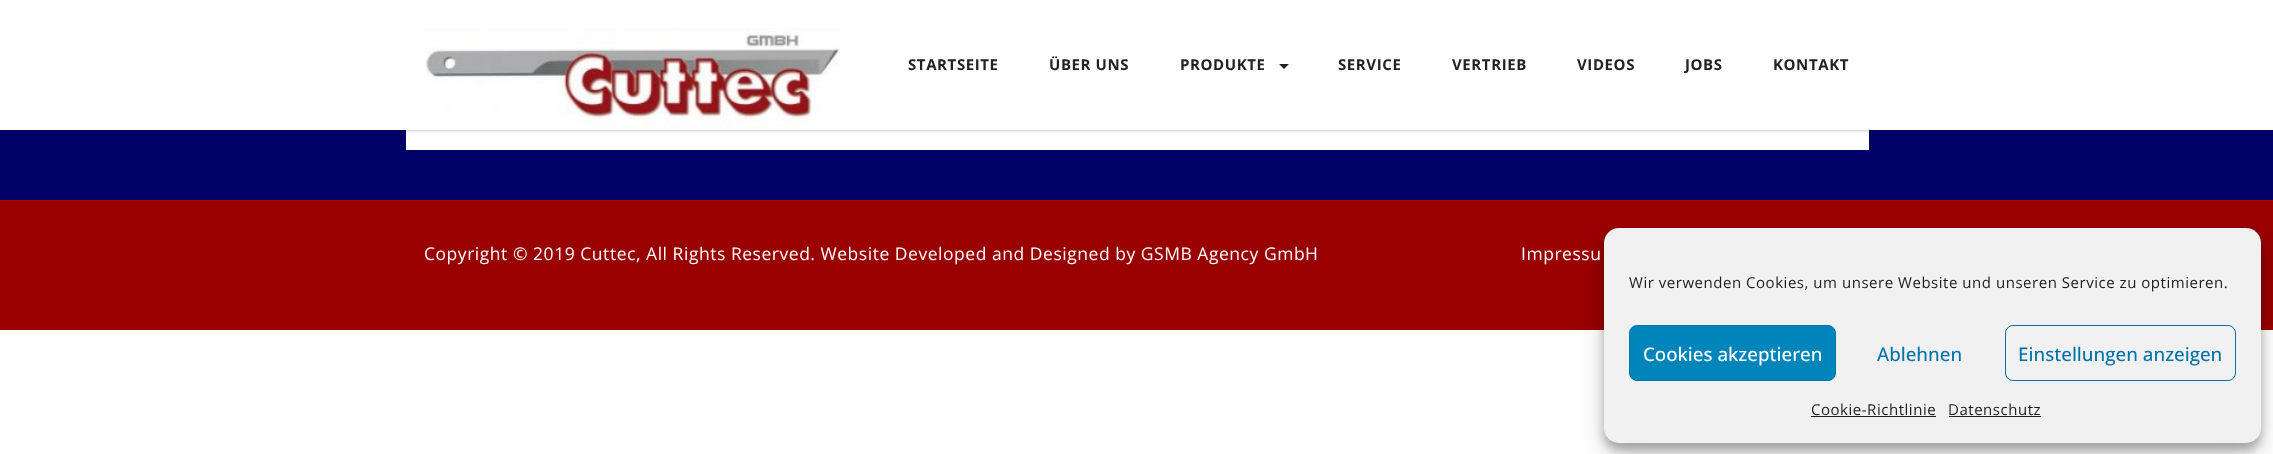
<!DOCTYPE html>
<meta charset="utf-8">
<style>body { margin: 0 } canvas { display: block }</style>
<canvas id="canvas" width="2273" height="454"></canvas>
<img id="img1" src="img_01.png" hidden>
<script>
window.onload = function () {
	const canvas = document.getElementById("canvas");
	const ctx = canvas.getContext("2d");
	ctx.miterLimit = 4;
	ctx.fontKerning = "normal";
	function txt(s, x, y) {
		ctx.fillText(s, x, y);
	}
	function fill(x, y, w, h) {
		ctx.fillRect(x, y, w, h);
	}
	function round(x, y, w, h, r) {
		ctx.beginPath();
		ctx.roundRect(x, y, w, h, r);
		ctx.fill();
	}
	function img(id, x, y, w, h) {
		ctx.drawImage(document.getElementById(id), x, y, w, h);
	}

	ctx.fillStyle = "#FFFFFF";
	fill(0, 0, 2273, 454);
	ctx.fillStyle = "#000066";
	fill(0, 130, 2273, 70);
	ctx.fillStyle = "#FFFFFF";
	fill(406, 130, 1463, 20);
	ctx.fillStyle = "rgba(0, 0, 0, 0.2)";
	ctx.filter = "blur(1px)";
	ctx.beginPath();
	ctx.rect(0, -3, 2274, 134);
	ctx.fill();
	ctx.filter = "none";
	ctx.fillStyle = "#FFFFFF";
	fill(0, 0, 2273, 130);
	img("img1", 425, 28, 415, 100);
	ctx.fillStyle = "#222222";
	ctx.beginPath();
	ctx.moveTo(1279, 64);
	ctx.lineTo(1289, 64);
	ctx.lineTo(1284, 69);
	ctx.closePath();
	ctx.fill();
	ctx.fillStyle = "#990000";
	fill(0, 201, 2273, 129);
	ctx.fillStyle = "#A80000";
	fill(0, 200, 2273, 1);
	ctx.fillStyle = "rgba(0, 0, 0, 0.23)";
	ctx.filter = "blur(4px)";
	ctx.beginPath();
	ctx.roundRect(1604, 235, 657, 215, 15);
	ctx.fill();
	ctx.filter = "none";
	ctx.fillStyle = "rgba(0, 0, 0, 0.19)";
	ctx.filter = "blur(12.5px)";
	ctx.beginPath();
	ctx.roundRect(1604, 240, 657, 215, 15);
	ctx.fill();
	ctx.filter = "none";
	ctx.fillStyle = "#F1F1F1";
	round(1604, 228, 657, 215, 15);
	ctx.fillStyle = "#0085BA";
	ctx.beginPath();
	ctx.roundRect(1629.5, 325.5, 206, 55, 7.5);
	ctx.fill();
	ctx.strokeStyle = "#0073AA";
	ctx.stroke();
	ctx.beginPath();
	ctx.roundRect(2005.5, 325.5, 230, 55, 7.5);
	ctx.stroke();
	ctx.fillStyle = "#191E23";
	fill(1811, 416, 125, 1);
	fill(1949, 416, 92, 1);
	ctx.letterSpacing = "0.6px";
	ctx.font = "bold 15px Open Sans";
	ctx.fillStyle = "#222222";
	txt("STARTSEITE", 908, 70);
	txt("ÜBER UNS", 1049, 70);
	txt("PRODUKTE", 1180, 70);
	txt("SERVICE", 1338, 70);
	txt("VERTRIEB", 1452, 70);
	txt("VIDEOS", 1577, 70);
	txt("JOBS", 1685, 70);
	txt("KONTAKT", 1773, 70);
	ctx.letterSpacing = "0.53px";
	ctx.font = "17.5px Open Sans";
	ctx.fillStyle = "#FFFFFF";
	txt("Copyright © 2019 Cuttec, All Rights Reserved. Website Developed and Designed by GSMB Agency GmbH", 424, 260);
	txt("Impressu", 1521, 260);
	ctx.font = "15px Open Sans";
	ctx.fillStyle = "#191E23";
	txt("Wir verwenden Cookies, um unsere Website und unseren Service zu optimieren.", 1629, 288);
	ctx.letterSpacing = "0px";
	ctx.font = "500 18.75px Open Sans";
	ctx.fillStyle = "#FFFFFF";
	txt("Cookies akzeptieren", 1643, 361);
	ctx.fillStyle = "#0073AA";
	txt("Ablehnen", 1877, 361);
	txt("Einstellungen anzeigen", 2018, 361);
	ctx.letterSpacing = "0.53px";
	ctx.font = "15px Open Sans";
	ctx.fillStyle = "#191E23";
	txt("Cookie-Richtlinie", 1811, 415);
	txt("Datenschutz", 1948, 415);
};
</script>
